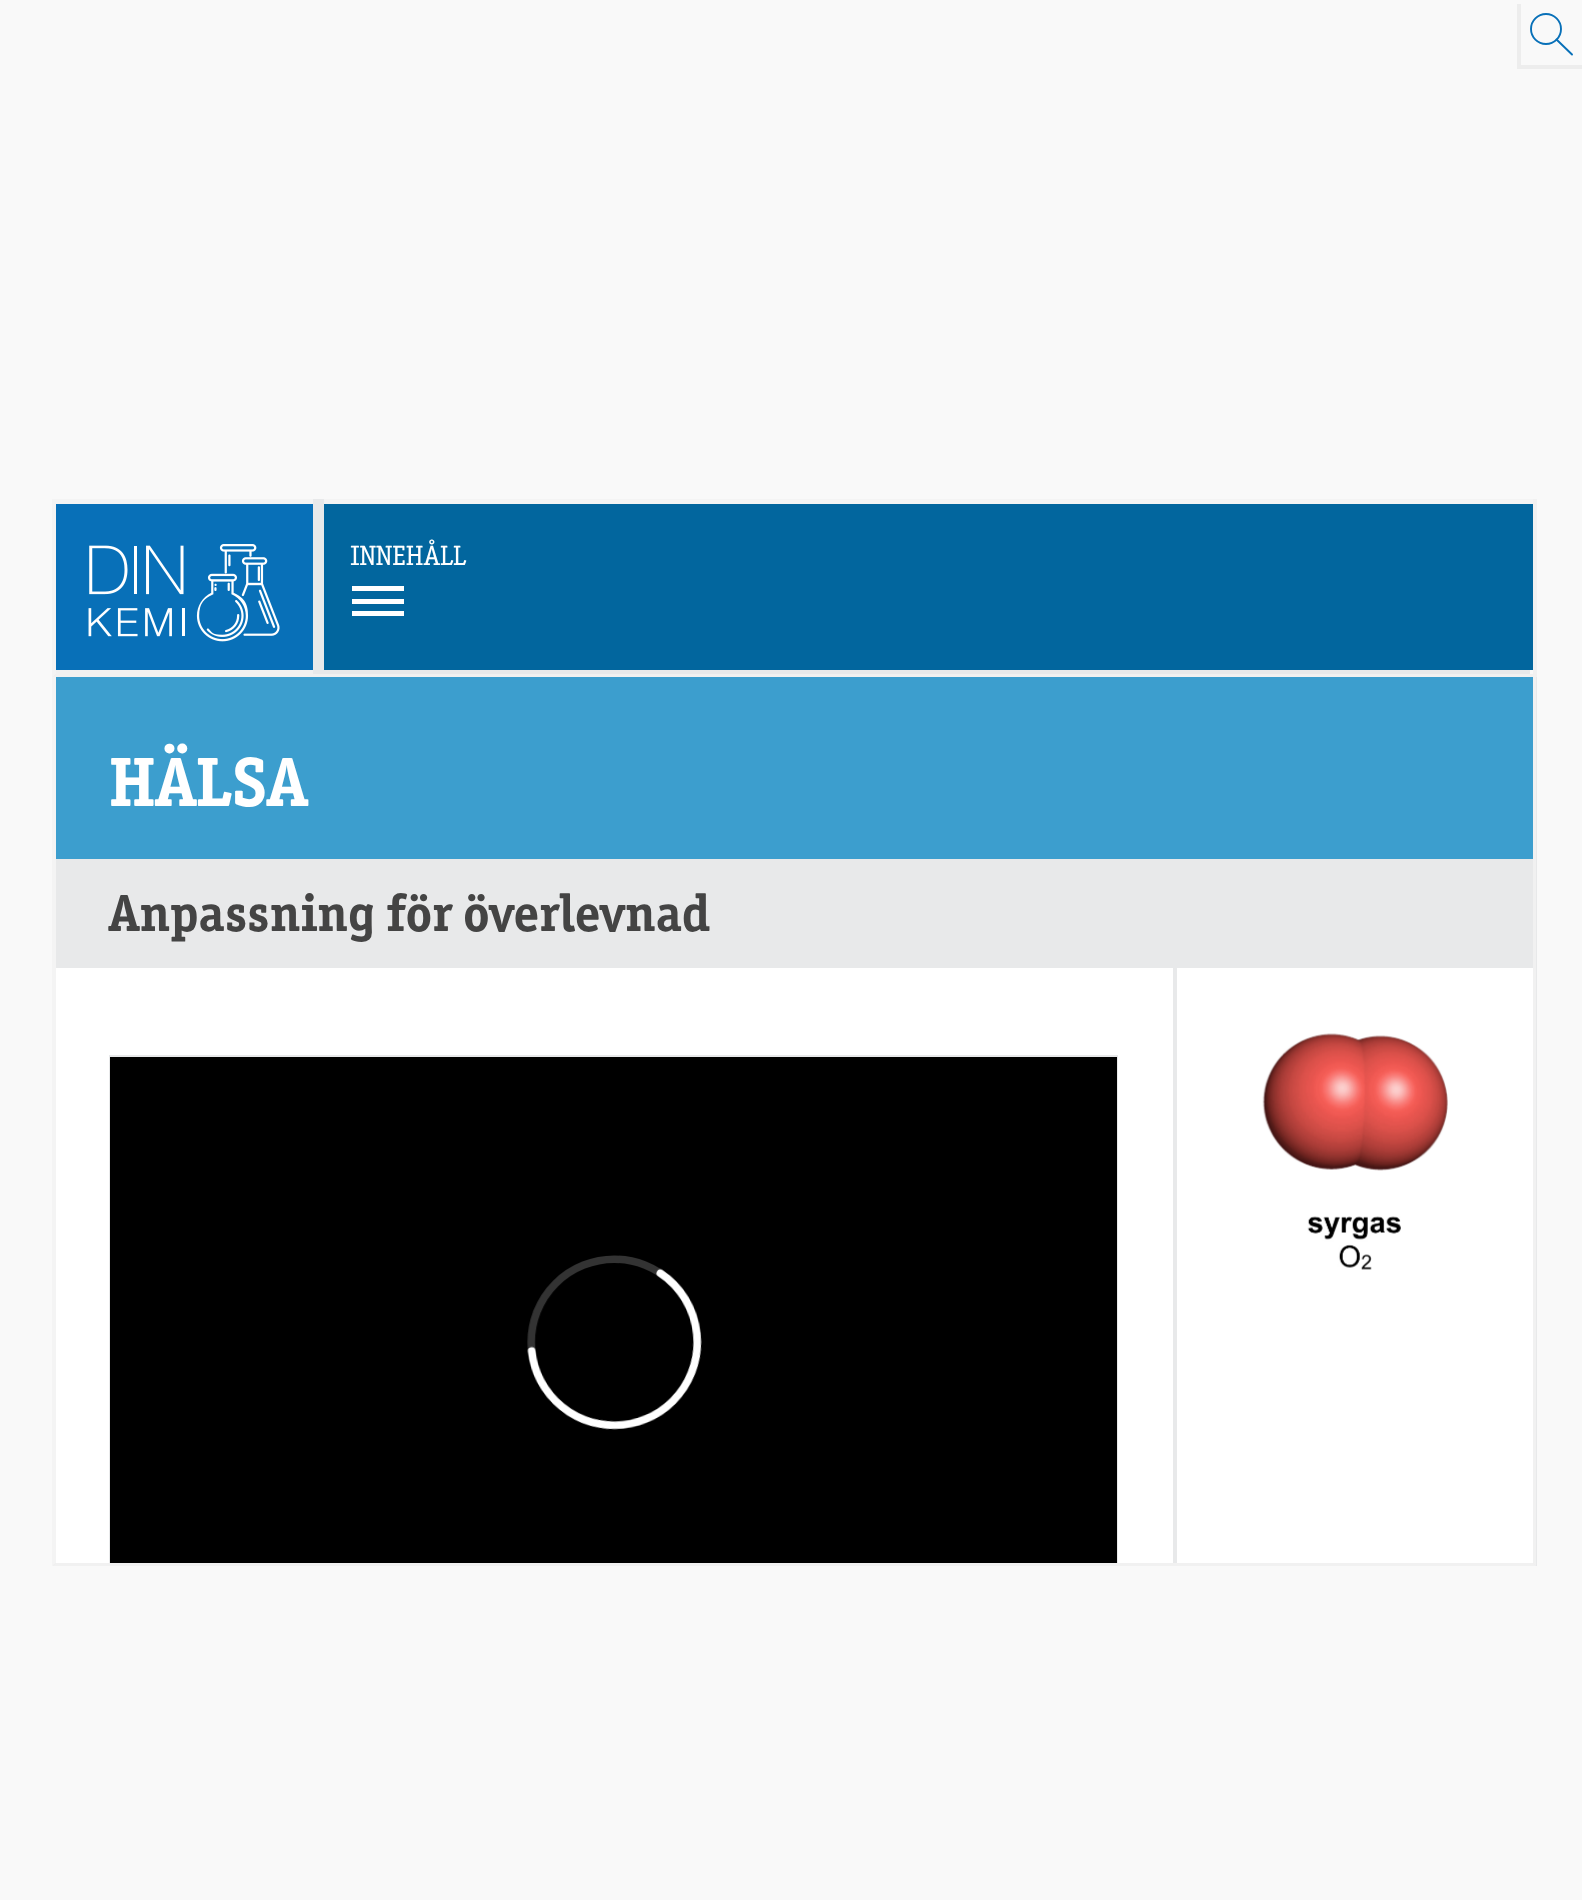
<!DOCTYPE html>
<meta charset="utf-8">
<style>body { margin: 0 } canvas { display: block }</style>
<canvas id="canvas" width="1582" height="1900"></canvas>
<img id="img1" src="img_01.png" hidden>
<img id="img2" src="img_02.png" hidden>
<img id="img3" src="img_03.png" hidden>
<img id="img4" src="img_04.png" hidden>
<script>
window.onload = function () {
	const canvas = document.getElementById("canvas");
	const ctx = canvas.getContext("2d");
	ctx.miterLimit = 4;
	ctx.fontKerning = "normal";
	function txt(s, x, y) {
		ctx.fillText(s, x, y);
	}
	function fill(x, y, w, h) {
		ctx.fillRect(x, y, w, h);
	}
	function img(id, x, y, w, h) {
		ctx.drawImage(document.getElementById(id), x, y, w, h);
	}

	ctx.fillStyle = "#F9F9F9";
	fill(0, 0, 1582, 1900);
	ctx.fillStyle = "#EDEDED";
	fill(1517, 65, 65, 4);
	fill(1517, 4, 4, 64);
	ctx.beginPath();
	ctx.arc(1546, 29, 15, 0, Math.PI * 2);
	ctx.strokeStyle = "#0870B8";
	ctx.lineWidth = 1.9;
	ctx.stroke();
	ctx.beginPath();
	ctx.moveTo(1556.5, 39.5);
	ctx.lineTo(1572, 54.5);
	ctx.lineCap = "round";
	ctx.stroke();
	ctx.fillStyle = "#E8E9EA";
	fill(313, 499, 1217, 175);
	fill(53, 674, 1484, 892);
	ctx.fillStyle = "#F1F1F1";
	ctx.beginPath();
	ctx.moveTo(1536, 674);
	ctx.lineTo(1536, 1566);
	ctx.lineTo(1533, 1563);
	ctx.lineTo(1533, 677);
	ctx.closePath();
	ctx.fill();
	fill(1533, 499, 4, 178);
	ctx.beginPath();
	ctx.moveTo(1536, 1566);
	ctx.lineTo(52, 1566);
	ctx.lineTo(56, 1563);
	ctx.lineTo(1533, 1563);
	ctx.closePath();
	ctx.fill();
	ctx.fillStyle = "#F4F4F4";
	ctx.beginPath();
	ctx.moveTo(52, 1566);
	ctx.lineTo(52, 674);
	ctx.lineTo(56, 677);
	ctx.lineTo(56, 1563);
	ctx.closePath();
	ctx.fill();
	ctx.fillStyle = "#F1F1F1";
	ctx.beginPath();
	ctx.moveTo(1536, 677);
	ctx.lineTo(52, 677);
	ctx.lineTo(56, 674);
	ctx.lineTo(1533, 674);
	ctx.closePath();
	ctx.fill();
	ctx.fillStyle = "#F4F4F4";
	ctx.beginPath();
	ctx.moveTo(52, 677);
	ctx.lineTo(52, 499);
	ctx.lineTo(56, 499);
	ctx.lineTo(56, 674);
	ctx.closePath();
	ctx.fill();
	ctx.fillStyle = "#0870B8";
	fill(56, 504, 257, 166);
	ctx.fillStyle = "#F4F4F4";
	fill(56, 499, 257, 5);
	ctx.fillStyle = "#F1F1F1";
	fill(56, 670, 257, 4);
	img("img1", 88, 544, 192, 98);
	ctx.fillStyle = "#02669E";
	fill(324, 504, 1209, 166);
	ctx.fillStyle = "#F4F4F4";
	fill(324, 499, 1209, 5);
	ctx.fillStyle = "#FFFFFF";
	ctx.beginPath();
	ctx.moveTo(352, 586);
	ctx.lineTo(404, 586);
	ctx.lineTo(404, 591);
	ctx.lineTo(352, 591);
	ctx.closePath();
	ctx.moveTo(352, 599);
	ctx.lineTo(404, 599);
	ctx.lineTo(404, 604);
	ctx.lineTo(352, 604);
	ctx.closePath();
	ctx.moveTo(352, 611);
	ctx.lineTo(404, 611);
	ctx.lineTo(404, 616);
	ctx.lineTo(352, 616);
	ctx.closePath();
	ctx.fill();
	ctx.fillStyle = "#3C9ECE";
	fill(56, 677, 1477, 182);
	ctx.fillStyle = "#FFFFFF";
	fill(56, 968, 1117, 595);
	ctx.save();
	ctx.beginPath();
	ctx.rect(56, 677, 1477, 886);
	ctx.clip();
	ctx.strokeStyle = "#E8E9EA";
	ctx.lineWidth = 2;
	ctx.strokeRect(110, 1056, 1007, 571);
	ctx.restore();
	img("img2", 110, 1057, 1007, 506);
	fill(1177, 968, 356, 595);
	img("img3", 1262, 1033, 186, 138);
	img("img4", 1307, 1216, 94, 54);
	ctx.font = "28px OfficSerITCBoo";
	txt("INNEHÅLL", 350, 565);
	ctx.font = "bold 70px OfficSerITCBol";
	txt("HÄLSA", 109, 806);
	ctx.font = "bold 52.5px OfficSerITCBol";
	ctx.fillStyle = "#444444";
	txt("Anpassning för överlevnad", 109, 931);
};
</script>
